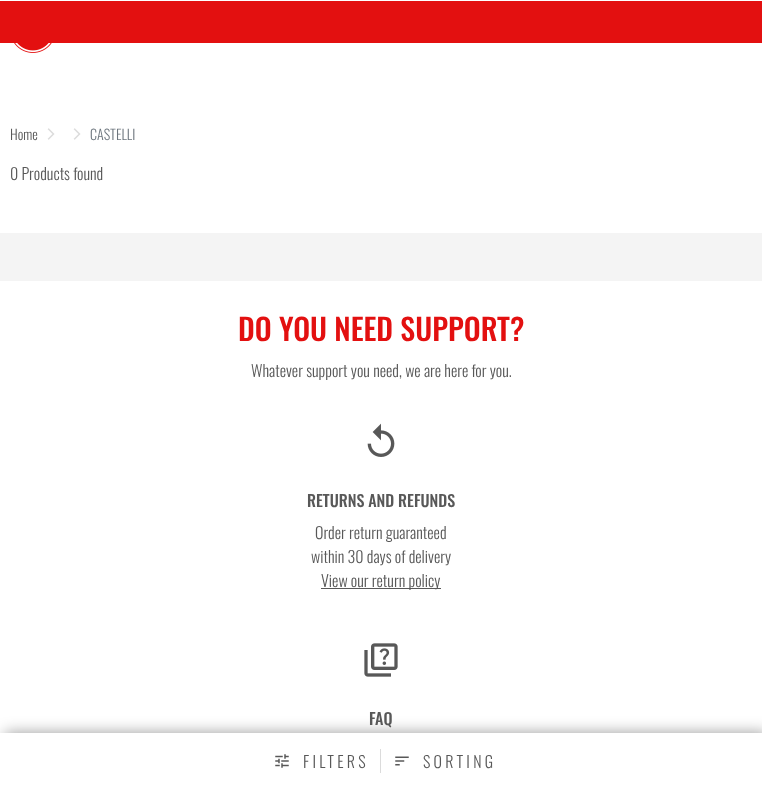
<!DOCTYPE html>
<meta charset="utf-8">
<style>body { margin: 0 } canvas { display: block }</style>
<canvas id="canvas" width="762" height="789"></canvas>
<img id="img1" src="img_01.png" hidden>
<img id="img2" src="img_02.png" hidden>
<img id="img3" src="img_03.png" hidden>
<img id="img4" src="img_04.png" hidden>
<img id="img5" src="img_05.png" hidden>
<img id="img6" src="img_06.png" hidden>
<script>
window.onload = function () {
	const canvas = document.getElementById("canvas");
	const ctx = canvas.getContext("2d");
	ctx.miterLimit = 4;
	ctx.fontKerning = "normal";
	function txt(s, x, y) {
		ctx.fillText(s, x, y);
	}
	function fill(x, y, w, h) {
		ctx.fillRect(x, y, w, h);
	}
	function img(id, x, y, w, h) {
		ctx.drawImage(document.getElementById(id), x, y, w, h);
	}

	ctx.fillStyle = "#FFFFFF";
	fill(0, 0, 762, 789);
	ctx.fillStyle = "#E31010";
	fill(0, 1, 762, 42);
	img("img1", 14, 43, 38, 10);
	img("img2", 47, 128, 8, 12);
	img("img2", 73, 128, 8, 12);
	ctx.fillStyle = "rgba(0, 0, 0, 0.4)";
	ctx.filter = "blur(7.5px)";
	ctx.beginPath();
	ctx.rect(5, 733, 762, 56);
	ctx.fill();
	ctx.filter = "none";
	ctx.fillStyle = "#FFFFFF";
	fill(0, 733, 762, 56);
	ctx.fillStyle = "#DBDBDB";
	fill(380, 749, 1, 24);
	img("img3", 275, 754, 14, 14);
	img("img4", 395, 756, 14, 10);
	ctx.fillStyle = "#F4F4F4";
	fill(0, 233, 762, 48);
	img("img5", 367, 423, 28, 34);
	ctx.fillStyle = "#585858";
	fill(321, 588, 120, 1);
	img("img6", 364, 643, 34, 34);
	ctx.font = "300 14px Oswald";
	txt("Home", 10, 140);
	ctx.fillStyle = "#6C757D";
	txt("CASTELLI", 90, 140);
	ctx.font = "300 16px Oswald";
	ctx.fillStyle = "#585858";
	txt("0 Products found", 10, 180);
	ctx.letterSpacing = "3.25px";
	txt("FILTERS", 303, 768);
	txt("SORTING", 423, 768);
	ctx.letterSpacing = "0px";
	ctx.font = "500 30px Oswald";
	ctx.fillStyle = "#E31010";
	txt("DO YOU NEED SUPPORT?", 238, 341);
	ctx.font = "300 16px Oswald";
	ctx.fillStyle = "#585858";
	txt("Whatever support you need, we are here for you.", 251, 377);
	ctx.font = "500 16px Oswald";
	txt("RETURNS AND REFUNDS", 307, 507);
	ctx.font = "300 16px Oswald";
	txt("Order return guaranteed", 315, 539);
	txt("within 30 days of delivery", 311, 563);
	txt("View our return policy", 321, 587);
	ctx.font = "500 16px Oswald";
	txt("FAQ", 369, 725);
};
</script>
